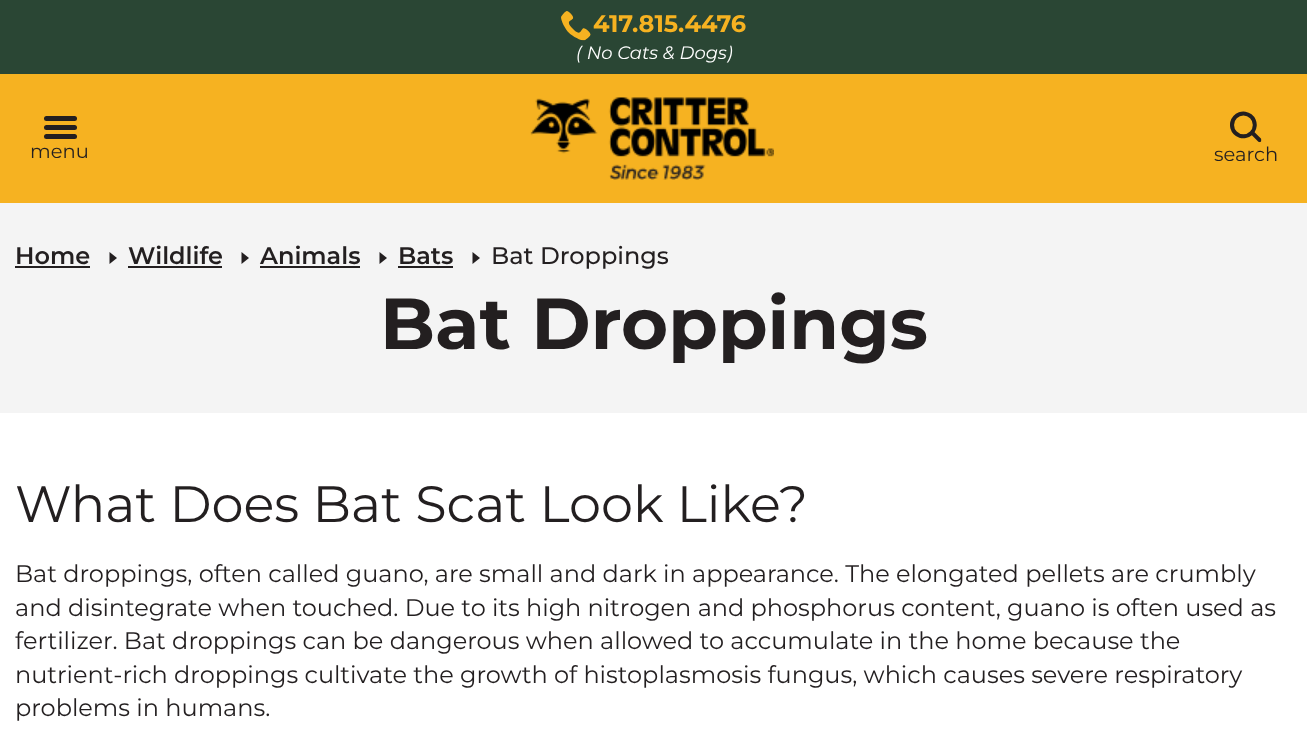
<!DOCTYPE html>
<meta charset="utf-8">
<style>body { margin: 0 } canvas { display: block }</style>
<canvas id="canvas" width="1307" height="742"></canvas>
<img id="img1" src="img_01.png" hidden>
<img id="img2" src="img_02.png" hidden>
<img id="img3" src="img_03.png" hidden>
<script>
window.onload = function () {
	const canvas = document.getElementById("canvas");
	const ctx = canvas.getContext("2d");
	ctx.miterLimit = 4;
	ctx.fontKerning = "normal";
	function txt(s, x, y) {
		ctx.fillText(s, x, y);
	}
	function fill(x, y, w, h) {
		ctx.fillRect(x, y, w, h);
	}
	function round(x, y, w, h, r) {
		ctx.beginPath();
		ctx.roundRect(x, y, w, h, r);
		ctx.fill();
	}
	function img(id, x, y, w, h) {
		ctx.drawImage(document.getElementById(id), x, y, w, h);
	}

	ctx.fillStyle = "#FFFFFF";
	fill(0, 0, 1307, 742);
	ctx.fillStyle = "#F6B221";
	fill(0, 74, 1307, 129);
	ctx.fillStyle = "#2A4634";
	fill(0, 0, 1307, 74);
	img("img1", 561, 11, 30, 30);
	ctx.fillStyle = "#231F20";
	round(44, 125, 33, 5, 2.5);
	round(44, 116, 33, 5, 2.5);
	round(44, 134, 33, 5, 2.5);
	img("img2", 530, 97, 244, 83);
	img("img3", 1230, 111, 32, 32);
	ctx.fillStyle = "#F4F4F4";
	fill(0, 203, 1307, 210);
	ctx.fillStyle = "#231F20";
	fill(15, 266, 75, 2);
	ctx.beginPath();
	ctx.moveTo(109.5, 264);
	ctx.lineTo(109.5, 252);
	ctx.lineTo(117, 258);
	ctx.closePath();
	ctx.fill();
	fill(128, 266, 94, 2);
	ctx.beginPath();
	ctx.moveTo(241.5, 264);
	ctx.lineTo(241.5, 252);
	ctx.lineTo(249, 258);
	ctx.closePath();
	ctx.fill();
	fill(260, 266, 100, 2);
	ctx.beginPath();
	ctx.moveTo(379.5, 264);
	ctx.lineTo(379.5, 252);
	ctx.lineTo(387, 258);
	ctx.closePath();
	ctx.fill();
	fill(398, 266, 55, 2);
	ctx.beginPath();
	ctx.moveTo(472.5, 264);
	ctx.lineTo(472.5, 252);
	ctx.lineTo(480, 258);
	ctx.closePath();
	ctx.fill();
	ctx.font = "bold 24px Montserrat";
	ctx.fillStyle = "#F6B221";
	txt("417.815.4476", 593, 32);
	ctx.font = "italic 18px Montserrat";
	ctx.fillStyle = "#FFFFFF";
	txt("( No Cats & Dogs)", 576, 59);
	ctx.font = "19.5px Montserrat";
	ctx.fillStyle = "#231F20";
	txt("menu", 30, 158);
	txt("search", 1214, 161);
	ctx.font = "600 24px Montserrat";
	txt("Home", 15, 264);
	txt("Wildlife", 128, 264);
	txt("Animals", 260, 264);
	txt("Bats", 398, 264);
	ctx.font = "500 24px Montserrat";
	txt("Bat Droppings", 491, 264);
	ctx.font = "bold 72px Montserrat";
	txt("Bat Droppings", 380, 349);
	ctx.font = "51px Montserrat";
	txt("What Does Bat Scat Look Like?", 15, 522);
	ctx.font = "24px Montserrat";
	txt("Bat droppings, often called guano, are small and dark in appearance. The elongated pellets are crumbly", 15, 582);
	txt("and disintegrate when touched. Due to its high nitrogen and phosphorus content, guano is often used as", 15, 616);
	txt("fertilizer. Bat droppings can be dangerous when allowed to accumulate in the home because the", 15, 649);
	txt("nutrient-rich droppings cultivate the growth of histoplasmosis fungus, which causes severe respiratory", 15, 683);
	txt("problems in humans.", 15, 716);
};
</script>
